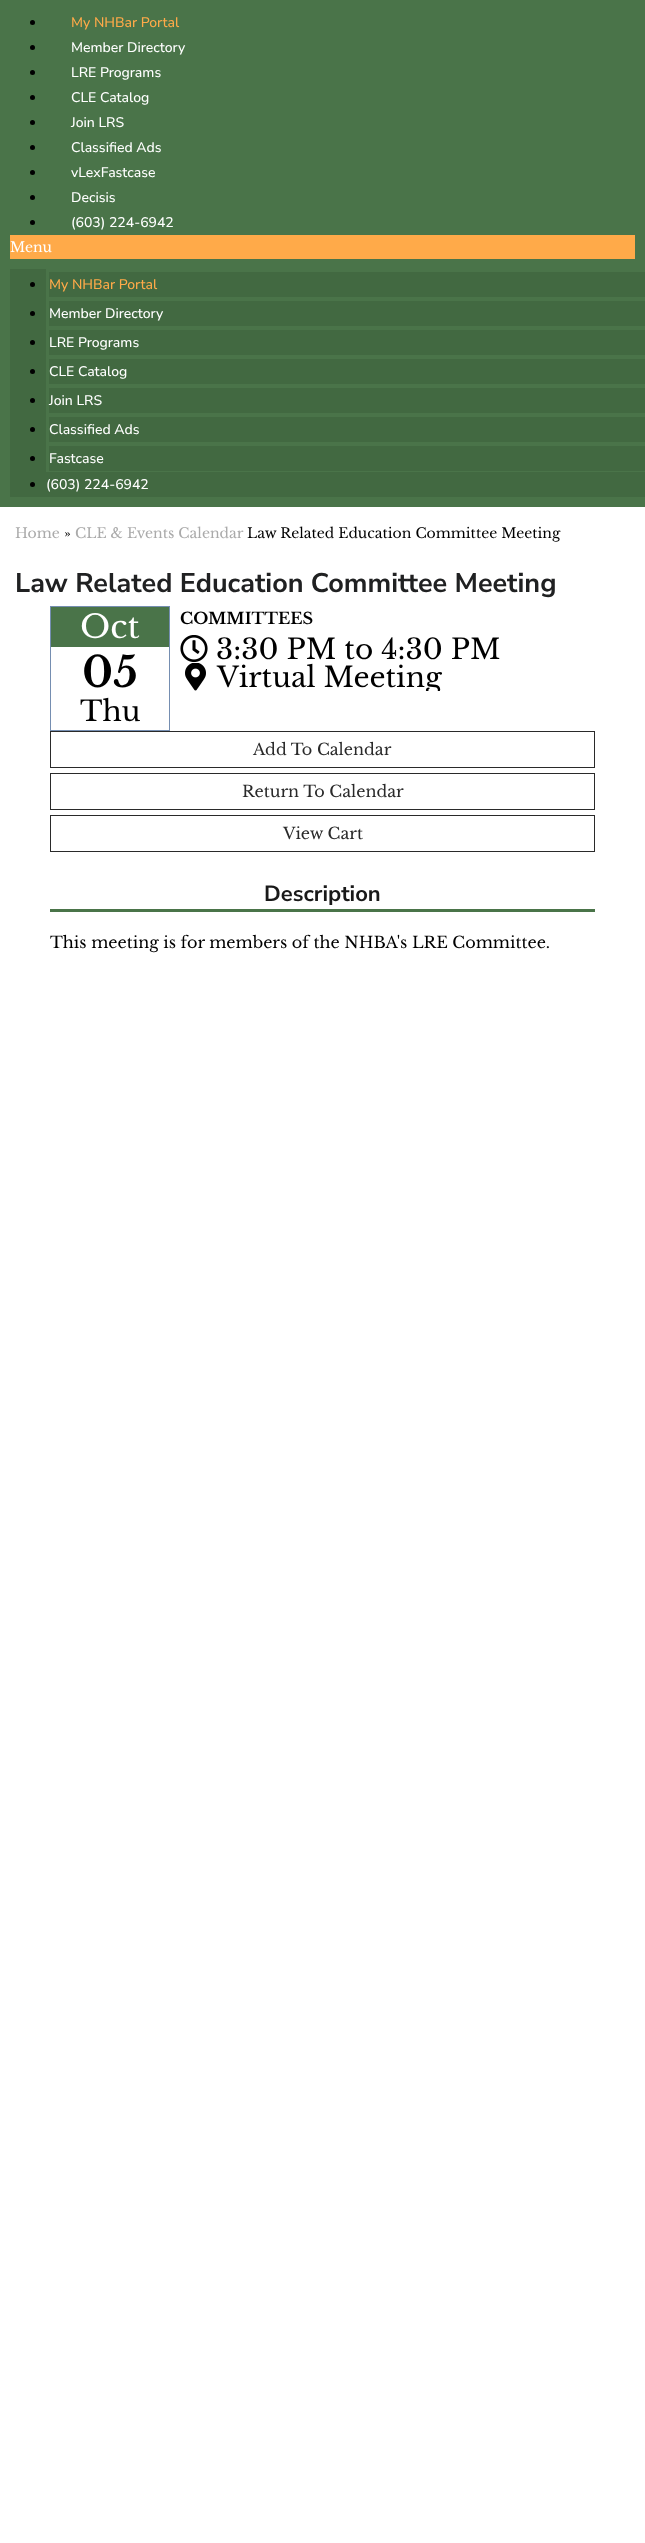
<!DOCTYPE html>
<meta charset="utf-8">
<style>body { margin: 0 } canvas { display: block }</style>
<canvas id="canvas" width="645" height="2543"></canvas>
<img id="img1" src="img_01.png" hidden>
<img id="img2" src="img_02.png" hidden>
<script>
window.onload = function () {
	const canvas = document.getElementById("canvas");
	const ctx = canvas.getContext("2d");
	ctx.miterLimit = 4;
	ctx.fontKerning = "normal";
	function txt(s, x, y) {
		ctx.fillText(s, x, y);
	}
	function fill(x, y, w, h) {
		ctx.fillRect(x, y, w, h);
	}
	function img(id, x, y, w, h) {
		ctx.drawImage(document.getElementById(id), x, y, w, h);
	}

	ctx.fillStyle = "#FFFFFF";
	fill(0, 0, 645, 2543);
	ctx.fillStyle = "#4A7449";
	fill(0, 0, 645, 507);
	ctx.fillStyle = "#000000";
	ctx.beginPath();
	ctx.arc(32.5, 22.5, 2.5, 0, Math.PI * 2);
	ctx.fill();
	ctx.beginPath();
	ctx.arc(32.5, 47.5, 2.5, 0, Math.PI * 2);
	ctx.fill();
	ctx.beginPath();
	ctx.arc(32.5, 72.5, 2.5, 0, Math.PI * 2);
	ctx.fill();
	ctx.beginPath();
	ctx.arc(32.5, 97.5, 2.5, 0, Math.PI * 2);
	ctx.fill();
	ctx.beginPath();
	ctx.arc(32.5, 122.5, 2.5, 0, Math.PI * 2);
	ctx.fill();
	ctx.beginPath();
	ctx.arc(32.5, 147.5, 2.5, 0, Math.PI * 2);
	ctx.fill();
	ctx.beginPath();
	ctx.arc(32.5, 172.5, 2.5, 0, Math.PI * 2);
	ctx.fill();
	ctx.beginPath();
	ctx.arc(32.5, 197.5, 2.5, 0, Math.PI * 2);
	ctx.fill();
	ctx.beginPath();
	ctx.arc(32.5, 222.5, 2.5, 0, Math.PI * 2);
	ctx.fill();
	ctx.fillStyle = "#FFAA49";
	fill(10, 235, 625, 24);
	ctx.fillStyle = "#426941";
	fill(10, 269, 635, 228);
	ctx.fillStyle = "#4A7449";
	fill(46, 269, 599, 3);
	fill(46, 297, 599, 4);
	fill(46, 269, 3, 29);
	ctx.fillStyle = "#000000";
	ctx.beginPath();
	ctx.arc(32.5, 284.5, 2.5, 0, Math.PI * 2);
	ctx.fill();
	ctx.fillStyle = "#4A7449";
	fill(46, 326, 599, 4);
	fill(46, 298, 3, 29);
	ctx.fillStyle = "#000000";
	ctx.beginPath();
	ctx.arc(32.5, 313.5, 2.5, 0, Math.PI * 2);
	ctx.fill();
	ctx.fillStyle = "#4A7449";
	fill(46, 355, 599, 4);
	fill(46, 327, 3, 29);
	ctx.fillStyle = "#000000";
	ctx.beginPath();
	ctx.arc(32.5, 342.5, 2.5, 0, Math.PI * 2);
	ctx.fill();
	ctx.fillStyle = "#4A7449";
	fill(46, 384, 599, 4);
	fill(46, 356, 3, 29);
	ctx.fillStyle = "#000000";
	ctx.beginPath();
	ctx.arc(32.5, 371.5, 2.5, 0, Math.PI * 2);
	ctx.fill();
	ctx.fillStyle = "#4A7449";
	fill(46, 413, 599, 4);
	fill(46, 385, 3, 29);
	ctx.fillStyle = "#000000";
	ctx.beginPath();
	ctx.arc(32.5, 400.5, 2.5, 0, Math.PI * 2);
	ctx.fill();
	ctx.fillStyle = "#4A7449";
	fill(46, 442, 599, 4);
	fill(46, 414, 3, 29);
	ctx.fillStyle = "#000000";
	ctx.beginPath();
	ctx.arc(32.5, 429.5, 2.5, 0, Math.PI * 2);
	ctx.fill();
	ctx.fillStyle = "#4A7449";
	fill(46, 471, 599, 1);
	fill(46, 443, 3, 29);
	ctx.fillStyle = "#000000";
	ctx.beginPath();
	ctx.arc(32.5, 458.5, 2.5, 0, Math.PI * 2);
	ctx.fill();
	ctx.beginPath();
	ctx.arc(32.5, 484.5, 2.5, 0, Math.PI * 2);
	ctx.fill();
	ctx.strokeStyle = "#758EB1";
	ctx.strokeRect(50.5, 606.5, 119, 124);
	ctx.fillStyle = "#4A7449";
	fill(51, 607, 118, 40);
	img("img1", 180, 635, 28, 28);
	img("img2", 185, 663, 21, 28);
	ctx.strokeStyle = "#2A2A2A";
	ctx.strokeRect(50.5, 731.5, 544, 36);
	ctx.strokeRect(50.5, 773.5, 544, 36);
	ctx.strokeRect(50.5, 815.5, 544, 36);
	fill(50, 909, 545, 3);
	ctx.font = "500 14px Nunito Sans";
	ctx.fillStyle = "#FFAA49";
	txt("My NHBar Portal", 71, 27);
	ctx.fillStyle = "#FFFFFF";
	txt("Member Directory", 71, 52);
	txt("LRE Programs", 71, 77);
	txt("CLE Catalog", 71, 102);
	txt("Join LRS", 71, 127);
	txt("Classified Ads", 71, 152);
	txt("vLexFastcase", 71, 177);
	txt("Decisis", 71, 202);
	txt("(603) 224-6942", 71, 227);
	ctx.font = "14px Libre Baskerville";
	txt("Menu", 10, 252);
	ctx.font = "500 14px Nunito Sans";
	ctx.fillStyle = "#FFAA49";
	txt("My NHBar Portal", 49, 289);
	ctx.fillStyle = "#FFFFFF";
	txt("Member Directory", 49, 318);
	txt("LRE Programs", 49, 347);
	txt("CLE Catalog", 49, 376);
	txt("Join LRS", 49, 405);
	txt("Classified Ads", 49, 434);
	txt("Fastcase", 49, 463);
	txt("(603) 224-6942", 46, 489);
	ctx.font = "14px Libre Baskerville";
	ctx.fillStyle = "#AAAAAA";
	txt("Home", 15, 538);
	ctx.fillStyle = "#000000";
	txt("»", 64, 538);
	ctx.fillStyle = "#AAAAAA";
	txt("CLE & Events Calendar", 75, 538);
	ctx.fillStyle = "#000000";
	txt("Law Related Education Committee Meeting", 247, 538);
	ctx.font = "bold 27px Nunito Sans";
	ctx.fillStyle = "#202122";
	txt("Law Related Education Committee Meeting", 15, 592);
	ctx.font = "32px Libre Baskerville";
	ctx.fillStyle = "#FFFFFF";
	txt("Oct", 80, 638);
	ctx.font = "600 42px Libre Baskerville";
	ctx.fillStyle = "#000000";
	txt("05", 82, 687);
	ctx.font = "28px Libre Baskerville";
	txt("Thu", 80, 721);
	ctx.font = "bold 16px Libre Baskerville";
	txt("COMMITTEES", 180, 624);
	ctx.font = "28px Libre Baskerville";
	txt("3:30 PM to 4:30 PM", 216, 659);
	ctx.save();
	ctx.beginPath();
	ctx.rect(180, 663, 415, 28);
	ctx.clip();
	txt("Virtual Meeting", 217, 687);
	ctx.restore();
	ctx.font = "16px Libre Baskerville";
	ctx.fillStyle = "#2A2A2A";
	txt("Add To Calendar", 253, 755);
	txt("Return To Calendar", 242, 797);
	txt("View Cart", 283, 839);
	ctx.font = "bold 22px Nunito Sans";
	ctx.fillStyle = "#191919";
	txt("Description", 264, 901);
	ctx.font = "16px Libre Baskerville";
	ctx.fillStyle = "#000000";
	txt("This meeting is for members of the NHBA's LRE Committee.", 50, 948);
};
</script>
